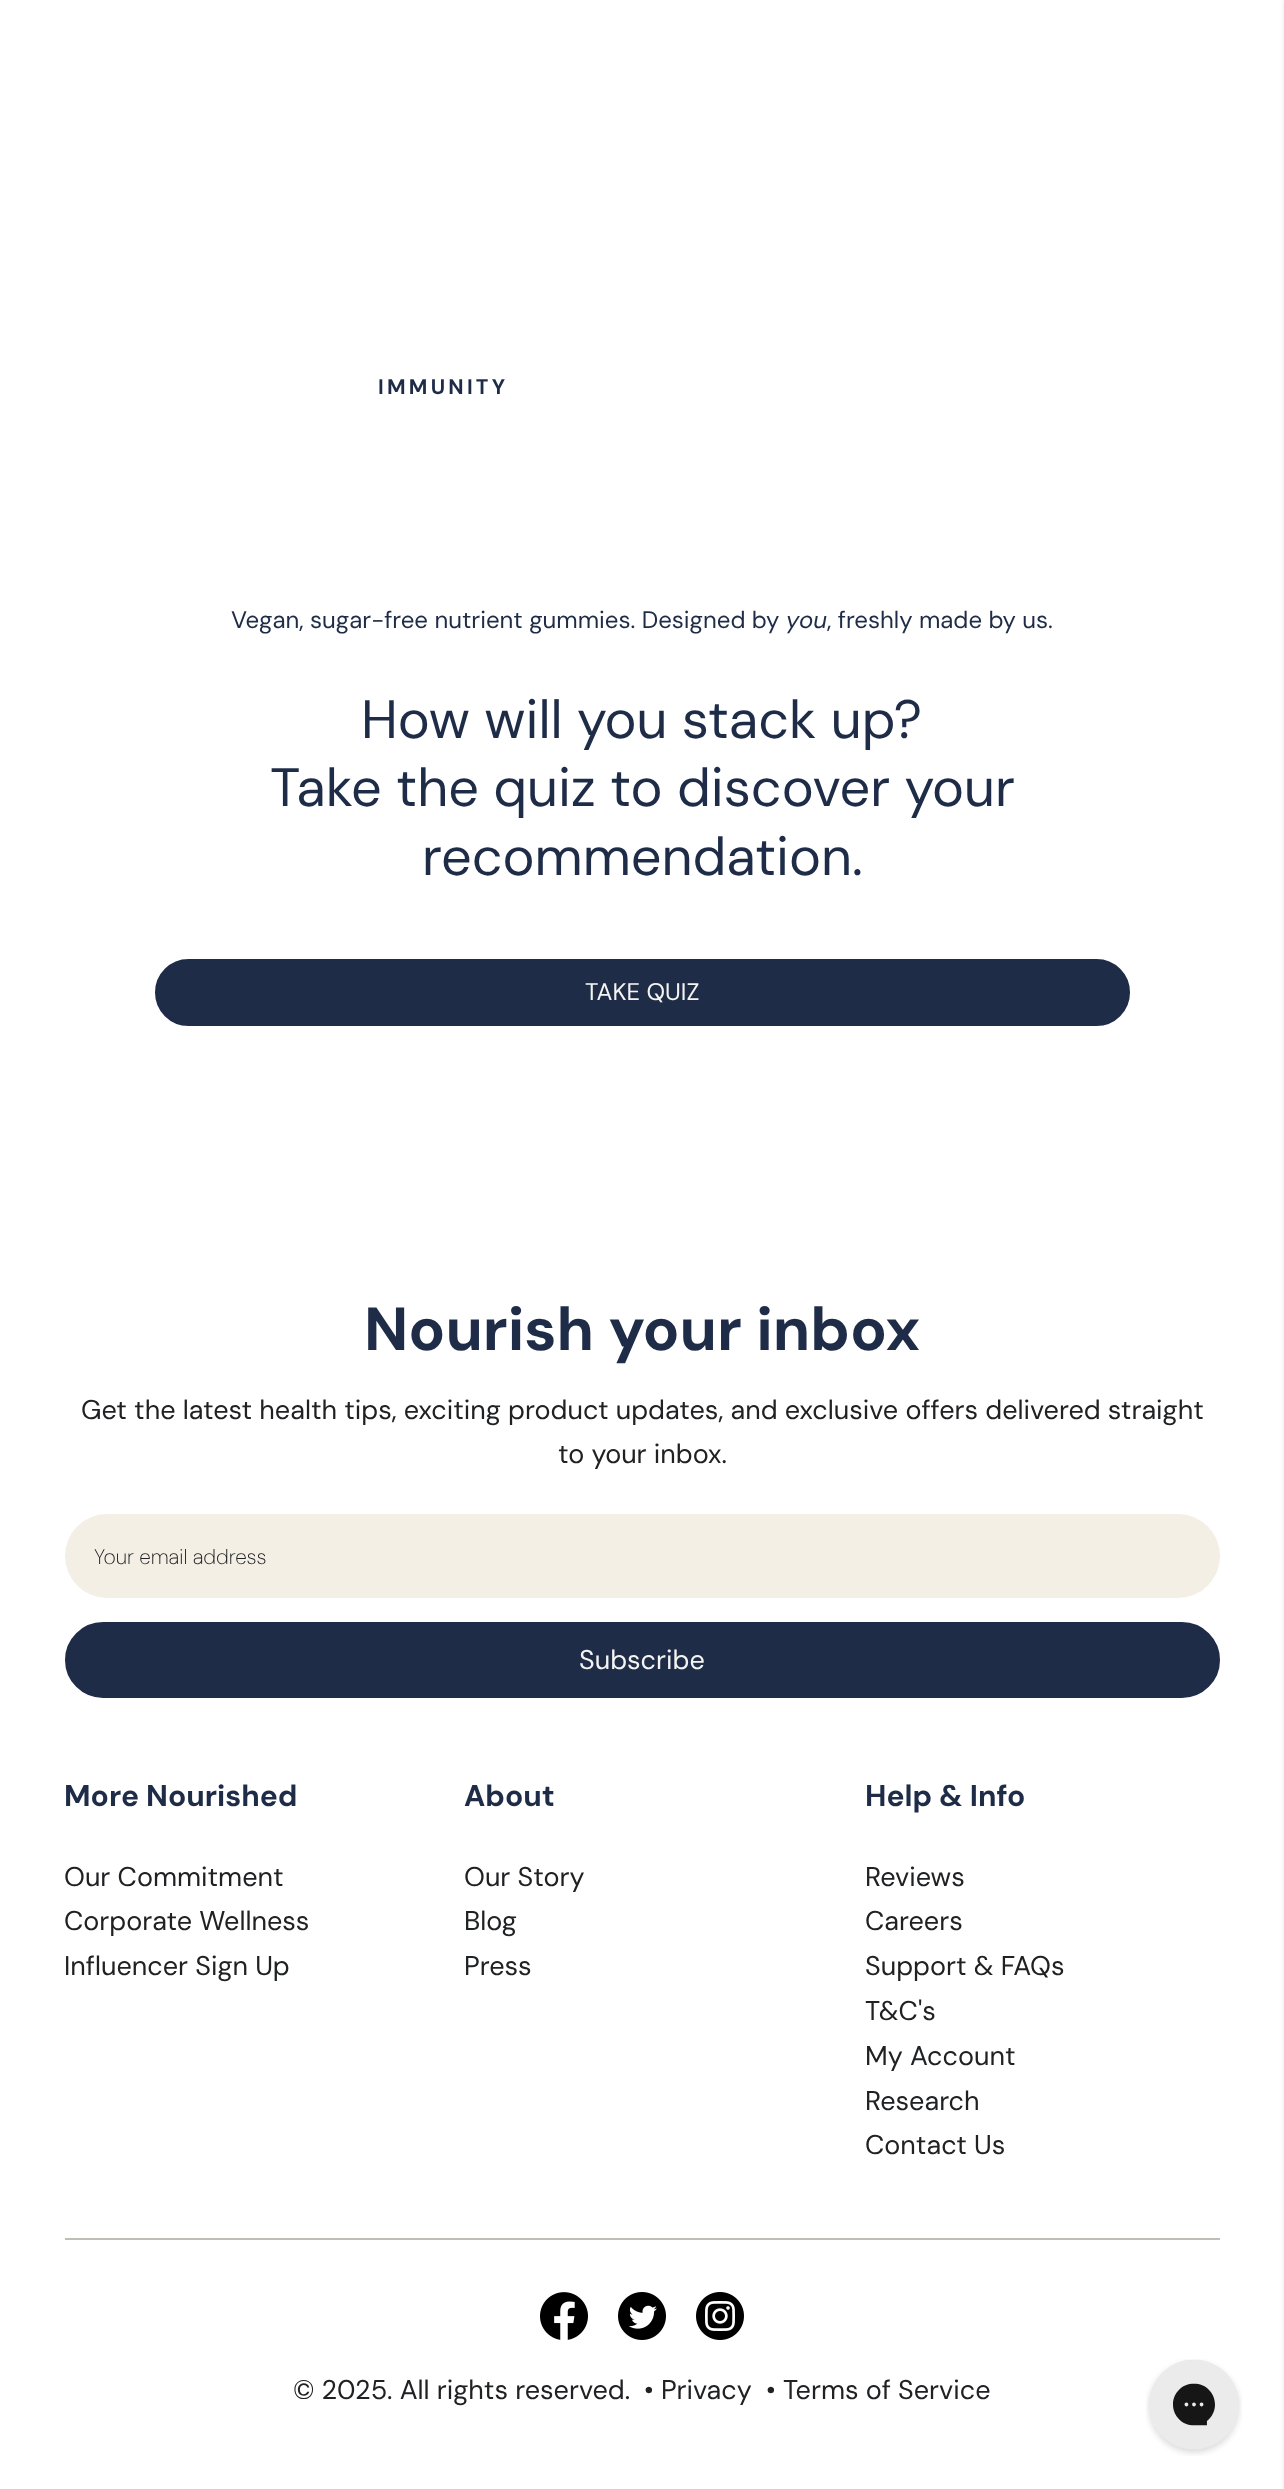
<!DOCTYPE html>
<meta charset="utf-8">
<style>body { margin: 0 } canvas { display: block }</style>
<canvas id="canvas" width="1284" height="2489"></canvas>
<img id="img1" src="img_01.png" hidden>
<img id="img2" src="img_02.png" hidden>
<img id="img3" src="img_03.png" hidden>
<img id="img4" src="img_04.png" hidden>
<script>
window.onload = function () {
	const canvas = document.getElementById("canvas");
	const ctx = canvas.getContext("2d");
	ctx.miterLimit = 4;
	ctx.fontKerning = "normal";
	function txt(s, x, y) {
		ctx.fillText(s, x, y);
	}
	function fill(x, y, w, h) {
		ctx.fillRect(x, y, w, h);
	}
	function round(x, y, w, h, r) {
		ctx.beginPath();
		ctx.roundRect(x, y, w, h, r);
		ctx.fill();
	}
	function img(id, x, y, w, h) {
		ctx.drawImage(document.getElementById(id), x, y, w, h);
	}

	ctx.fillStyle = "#FFFFFF";
	fill(0, 0, 1284, 2489);
	ctx.fillStyle = "#1E2C48";
	ctx.beginPath();
	ctx.roundRect(156, 960, 973, 65, 32.5);
	ctx.fill();
	ctx.strokeStyle = "#1E2C48";
	ctx.lineWidth = 2;
	ctx.stroke();
	ctx.fillStyle = "rgba(0, 0, 0, 0.1)";
	ctx.filter = "blur(2px)";
	ctx.beginPath();
	ctx.rect(1284, 0, 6, 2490);
	ctx.fill();
	ctx.filter = "none";
	ctx.fillStyle = "#F4EFE5";
	round(65, 1514, 1155, 84, 42);
	ctx.fillStyle = "#1E2C48";
	ctx.beginPath();
	ctx.roundRect(66, 1623, 1153, 74, 37);
	ctx.fill();
	ctx.stroke();
	ctx.fillStyle = "#C0BDB7";
	fill(65, 2238, 1155, 2);
	img("img1", 540, 2292, 48, 48);
	img("img2", 618, 2292, 48, 48);
	img("img3", 696, 2292, 48, 48);
	img("img4", 1146, 2359, 96, 97);
	ctx.letterSpacing = "3.25px";
	ctx.font = "bold 21px DM Sans";
	ctx.fillStyle = "#1E2C48";
	txt("IMMUNITY", 378, 394);
	ctx.letterSpacing = "0px";
	ctx.font = "24px DM Sans";
	txt("Vegan, sugar-free nutrient gummies. Designed by", 231, 628);
	ctx.font = "italic 24px DM Sans";
	txt("you", 786, 628);
	ctx.font = "24px DM Sans";
	txt(", freshly made by us.", 827, 628);
	ctx.font = "54px DM Sans";
	txt("How will you stack up?", 361, 738);
	txt("Take the quiz to discover your", 270, 806);
	txt("recommendation.", 422, 875);
	ctx.font = "24px DM Sans";
	ctx.fillStyle = "#F5F4F2";
	txt("TAKE QUIZ", 585, 1000);
	ctx.font = "bold 60.75px DM Sans";
	ctx.fillStyle = "#1E2C48";
	txt("Nourish your inbox", 364, 1350);
	ctx.font = "27px DM Sans";
	ctx.fillStyle = "#202123";
	txt("Get the latest health tips, exciting product updates, and exclusive offers delivered straight", 81, 1419);
	txt("to your inbox.", 558, 1463);
	ctx.font = "200 21px DM Sans";
	txt("Your email address", 94, 1564);
	ctx.font = "27px DM Sans";
	ctx.fillStyle = "#F5F4F2";
	txt("Subscribe", 579, 1669);
	ctx.font = "bold 30px DM Sans";
	ctx.fillStyle = "#1E2C48";
	txt("More Nourished", 64, 1806);
	ctx.font = "27px DM Sans";
	ctx.fillStyle = "#202123";
	txt("Our Commitment", 64, 1886);
	txt("Corporate Wellness", 64, 1930);
	txt("Influencer Sign Up", 64, 1975);
	ctx.font = "bold 30px DM Sans";
	ctx.fillStyle = "#1E2C48";
	txt("About", 464, 1806);
	ctx.font = "27px DM Sans";
	ctx.fillStyle = "#202123";
	txt("Our Story", 464, 1886);
	txt("Blog", 464, 1930);
	txt("Press", 464, 1975);
	ctx.font = "bold 30px DM Sans";
	ctx.fillStyle = "#1E2C48";
	txt("Help & Info", 865, 1806);
	ctx.font = "27px DM Sans";
	ctx.fillStyle = "#202123";
	txt("Reviews", 865, 1886);
	txt("Careers", 865, 1930);
	txt("Support & FAQs", 865, 1975);
	txt("T&C's", 865, 2020);
	txt("My Account", 865, 2065);
	txt("Research", 865, 2110);
	txt("Contact Us", 865, 2154);
	txt("© 2025. All rights reserved.", 293, 2399);
	txt("• Privacy", 644, 2399);
	txt("• Terms of Service", 766, 2399);
};
</script>
